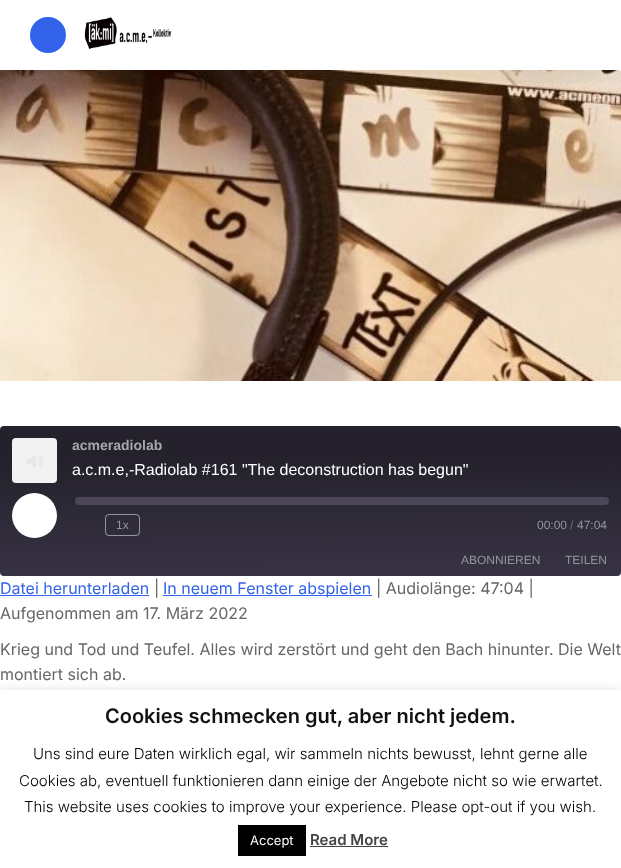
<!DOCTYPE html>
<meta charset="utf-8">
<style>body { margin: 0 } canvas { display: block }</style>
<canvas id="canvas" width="621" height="868"></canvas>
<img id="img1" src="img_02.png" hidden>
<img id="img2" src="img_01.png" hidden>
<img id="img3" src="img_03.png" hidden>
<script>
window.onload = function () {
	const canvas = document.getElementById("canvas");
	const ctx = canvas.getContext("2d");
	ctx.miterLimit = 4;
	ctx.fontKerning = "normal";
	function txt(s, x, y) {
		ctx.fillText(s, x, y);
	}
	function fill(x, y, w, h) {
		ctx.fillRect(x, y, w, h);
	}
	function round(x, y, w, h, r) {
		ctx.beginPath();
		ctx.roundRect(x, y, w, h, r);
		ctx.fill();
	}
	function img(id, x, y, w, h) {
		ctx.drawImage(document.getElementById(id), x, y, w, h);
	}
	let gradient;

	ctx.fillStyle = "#FFFFFF";
	fill(0, 0, 621, 868);
	img("img1", 0, 70, 621, 311);
	ctx.save();
	ctx.beginPath();
	ctx.rect(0, 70, 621, 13);
	ctx.clip();
	ctx.fillStyle = "rgba(0, 0, 0, 0.1)";
	ctx.filter = "blur(15px)";
	ctx.beginPath();
	ctx.rect(0, 0, 621, 70);
	ctx.fill();
	ctx.filter = "none";
	ctx.restore();
	ctx.fillStyle = "#3263EA";
	ctx.beginPath();
	ctx.arc(48, 35, 18, 0, Math.PI * 2);
	ctx.fill();
	img("img2", 84, 17, 88, 32);
	gradient = ctx.createLinearGradient(311, 578, 310, 424);
	gradient.addColorStop(0.01, "#383344");
	gradient.addColorStop(0.78, "#24212C");
	ctx.fillStyle = gradient;
	round(0, 426, 621, 150, 4);
	img("img3", 12, 438, 45, 45);
	ctx.fillStyle = "#FFFFFF";
	ctx.beginPath();
	ctx.arc(34.5, 515.5, 22.5, 0, Math.PI * 2);
	ctx.fill();
	ctx.fillStyle = "#4C4659";
	round(75, 497, 534, 8, 4);
	ctx.beginPath();
	ctx.roundRect(105.5, 514.5, 34, 21, 3.5);
	ctx.strokeStyle = "rgba(255, 255, 255, 0.5)";
	ctx.stroke();
	ctx.fillStyle = "#3263EA";
	fill(0, 595, 149, 1);
	fill(163, 595, 209, 1);
	ctx.fillStyle = "rgba(172, 171, 171, 0.3)";
	ctx.filter = "blur(5px)";
	ctx.beginPath();
	ctx.rect(0, 689, 621, 178);
	ctx.fill();
	ctx.filter = "none";
	ctx.fillStyle = "#FFFFFF";
	fill(0, 690, 621, 178);
	ctx.fillStyle = "#000000";
	fill(238, 825, 68, 31);
	ctx.fillStyle = "#444444";
	fill(310, 846, 78, 1);
	ctx.font = "bold 14px Liberation Sans";
	ctx.fillStyle = "#A7A6AB";
	txt("acmeradiolab", 72, 450);
	ctx.font = "16px Liberation Sans";
	ctx.fillStyle = "#FFFFFF";
	txt("a.c.m.e,-Radiolab #161 \"The deconstruction has begun\"", 72, 475);
	ctx.font = "12px Liberation Sans";
	ctx.fillStyle = "#97959C";
	txt("1x", 116, 529);
	txt("00:00", 537, 529);
	ctx.fillStyle = "#6E6B75";
	txt("/", 570, 529);
	ctx.fillStyle = "#97959C";
	txt("47:04", 577, 529);
	txt("ABONNIEREN", 461, 564);
	txt("TEILEN", 565, 564);
	ctx.font = "16px Inter";
	ctx.fillStyle = "#3263EA";
	txt("Datei herunterladen", 0, 594);
	ctx.fillStyle = "#666666";
	txt("|", 154, 594);
	ctx.fillStyle = "#3263EA";
	txt("In neuem Fenster abspielen", 163, 594);
	ctx.fillStyle = "#666666";
	txt("| Audiolänge: 47:04 |", 376, 594);
	txt("Aufgenommen am 17. März 2022", 0, 619);
	txt("Krieg und Tod und Teufel. Alles wird zerstört und geht den Bach hinunter. Die Welt", 0, 655);
	txt("montiert sich ab.", 0, 680);
	ctx.font = "600 20px Inter";
	ctx.fillStyle = "#111111";
	txt("Cookies schmecken gut, aber nicht jedem.", 105, 723);
	ctx.font = "300 15px Inter";
	ctx.fillStyle = "#000000";
	txt("Uns sind eure Daten wirklich egal, wir sammeln nichts bewusst, lehnt gerne alle", 33, 759);
	txt("Cookies ab, eventuell funktionieren dann einige der Angebote nicht so wie erwartet.", 19, 786);
	txt("This website uses cookies to improve your experience. Please opt-out if you wish.", 24, 812);
	ctx.font = "13px Inter";
	ctx.fillStyle = "#FFFFFF";
	txt("Accept", 250, 845);
	ctx.font = "600 15px Inter";
	ctx.fillStyle = "#444444";
	txt("Read More", 310, 845);
};
</script>
